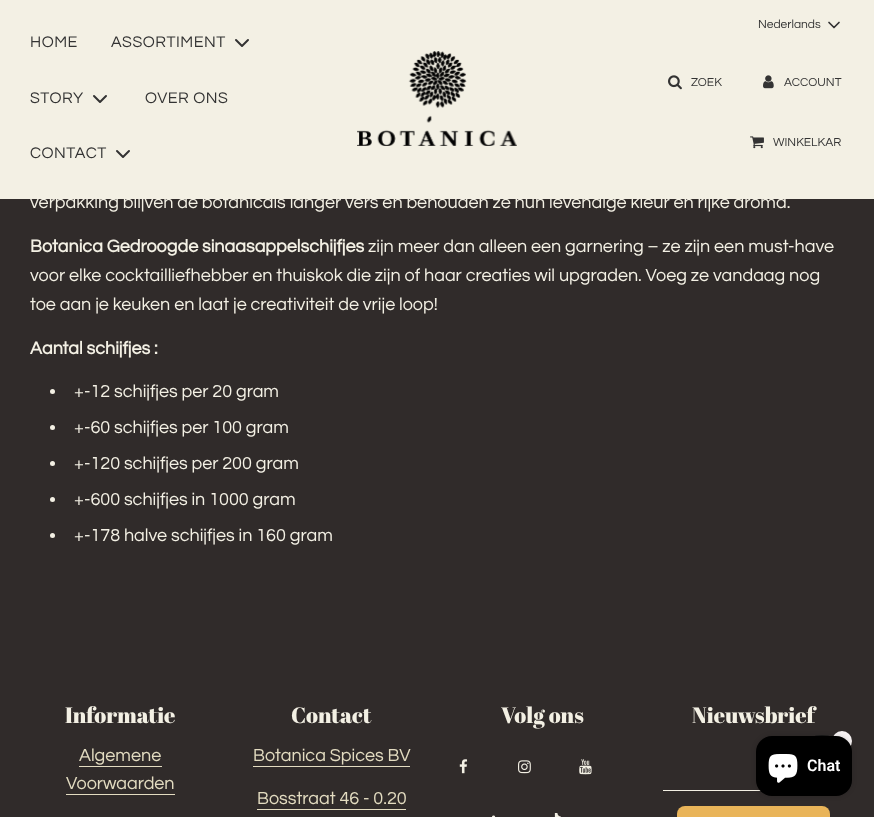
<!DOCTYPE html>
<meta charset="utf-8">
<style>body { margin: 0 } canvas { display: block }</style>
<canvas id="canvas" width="874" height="817"></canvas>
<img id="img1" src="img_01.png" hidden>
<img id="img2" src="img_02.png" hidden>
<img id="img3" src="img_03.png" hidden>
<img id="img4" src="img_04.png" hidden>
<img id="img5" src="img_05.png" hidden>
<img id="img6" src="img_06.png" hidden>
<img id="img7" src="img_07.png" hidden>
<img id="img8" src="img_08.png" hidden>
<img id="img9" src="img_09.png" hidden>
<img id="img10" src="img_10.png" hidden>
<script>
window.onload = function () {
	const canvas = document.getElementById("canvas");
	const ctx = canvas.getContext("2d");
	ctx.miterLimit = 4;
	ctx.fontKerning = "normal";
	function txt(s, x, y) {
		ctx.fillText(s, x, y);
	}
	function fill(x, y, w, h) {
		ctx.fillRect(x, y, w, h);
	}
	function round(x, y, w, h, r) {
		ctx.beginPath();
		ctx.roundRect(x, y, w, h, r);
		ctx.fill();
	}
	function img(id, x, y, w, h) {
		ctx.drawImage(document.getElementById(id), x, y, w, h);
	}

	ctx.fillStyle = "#302B2A";
	fill(0, 0, 874, 817);
	ctx.fillStyle = "#F3F0E4";
	fill(0, 0, 874, 199);
	ctx.beginPath();
	ctx.moveTo(236, 40);
	ctx.lineTo(242, 46);
	ctx.lineTo(248, 40);
	ctx.strokeStyle = "#333333";
	ctx.lineWidth = 2;
	ctx.lineCap = "round";
	ctx.lineJoin = "round";
	ctx.stroke();
	ctx.beginPath();
	ctx.moveTo(94, 96);
	ctx.lineTo(100, 102);
	ctx.lineTo(106, 96);
	ctx.stroke();
	ctx.beginPath();
	ctx.moveTo(117, 151);
	ctx.lineTo(123, 157);
	ctx.lineTo(129, 151);
	ctx.stroke();
	img("img1", 357, 51, 160, 95);
	ctx.beginPath();
	ctx.moveTo(829, 22.5);
	ctx.lineTo(834, 27.5);
	ctx.lineTo(839, 22.5);
	ctx.lineWidth = 1.7;
	ctx.stroke();
	img("img2", 668, 75, 14, 15);
	img("img3", 763, 75, 11, 14);
	img("img4", 750, 136, 14, 13);
	ctx.beginPath();
	ctx.arc(52.5, 391.5, 2.5, 0, Math.PI * 2);
	ctx.fill();
	ctx.beginPath();
	ctx.arc(52.5, 427.5, 2.5, 0, Math.PI * 2);
	ctx.fill();
	ctx.beginPath();
	ctx.arc(52.5, 463.5, 2.5, 0, Math.PI * 2);
	ctx.fill();
	ctx.beginPath();
	ctx.arc(52.5, 499.5, 2.5, 0, Math.PI * 2);
	ctx.fill();
	ctx.beginPath();
	ctx.arc(52.5, 535.5, 2.5, 0, Math.PI * 2);
	ctx.fill();
	ctx.fillStyle = "#E3DCC1";
	fill(79, 766, 83, 1);
	fill(66, 794, 109, 1);
	fill(253, 766, 157, 1);
	fill(257, 809, 149, 1);
	img("img5", 459, 759, 9, 15);
	img("img6", 518, 760, 13, 14);
	img("img7", 579, 759, 13, 16);
	img("img8", 492, 815, 4, 2);
	img("img9", 554, 813, 7, 4);
	ctx.fillStyle = "#F3F0E4";
	fill(663, 790, 98, 1);
	ctx.fillStyle = "#E9B459";
	round(677, 806, 153, 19, 8);
	ctx.fillStyle = "#191919";
	ctx.beginPath();
	ctx.arc(822, 765, 30, 0, Math.PI * 2);
	ctx.fill();
	ctx.fillStyle = "#F7F3F3";
	ctx.beginPath();
	ctx.arc(842, 741, 10, 0, Math.PI * 2);
	ctx.fill();
	ctx.fillStyle = "rgba(0, 0, 0, 0.15)";
	ctx.filter = "blur(2.5px)";
	ctx.beginPath();
	ctx.roundRect(756, 736, 96, 60, 16);
	ctx.fill();
	ctx.filter = "none";
	ctx.fillStyle = "#000000";
	round(756, 736, 96, 60, 16);
	img("img10", 768, 754, 30, 29);
	ctx.letterSpacing = "0.5px";
	ctx.font = "16px Questrial";
	ctx.fillStyle = "#333333";
	txt("HOME", 30, 47);
	txt("ASSORTIMENT", 111, 47);
	txt("STORY", 30, 103);
	txt("OVER ONS", 145, 103);
	txt("CONTACT", 30, 158);
	ctx.letterSpacing = "0px";
	ctx.font = "12px Questrial";
	txt("Nederlands", 758, 28);
	txt("ZOEK", 691, 86);
	txt("ACCOUNT", 784, 86);
	txt("WINKELKAR", 773, 146);
	ctx.font = "18px Questrial";
	ctx.fillStyle = "#F3F0E4";
	txt("verpakking blijven de botanicals langer vers en behouden ze hun levendige kleur en rijke aroma.", 30, 208);
	ctx.font = "bold 18px Questrial";
	txt("Botanica Gedroogde sinaasappelschijfjes", 30, 252);
	ctx.font = "18px Questrial";
	txt("zijn meer dan alleen een garnering – ze zijn een must-have", 368, 252);
	txt("voor elke cocktailliefhebber en thuiskok die zijn of haar creaties wil upgraden. Voeg ze vandaag nog", 30, 281);
	txt("toe aan je keuken en laat je creativiteit de vrije loop!", 30, 310);
	ctx.font = "bold 18px Questrial";
	txt("Aantal schijfjes :", 30, 354);
	ctx.font = "18px Questrial";
	txt("+-12 schijfjes per 20 gram", 74, 397);
	txt("+-60 schijfjes per 100 gram", 74, 433);
	txt("+-120 schijfjes per 200 gram", 74, 469);
	txt("+-600 schijfjes in 1000 gram", 74, 505);
	txt("+-178 halve schijfjes in 160 gram", 74, 541);
	ctx.font = "22px Abril Fatface";
	txt("Informatie", 65, 723);
	ctx.font = "18px Questrial";
	ctx.fillStyle = "#E3DCC1";
	txt("Algemene", 79, 761);
	txt("Voorwaarden", 66, 789);
	ctx.font = "22px Abril Fatface";
	ctx.fillStyle = "#F3F0E4";
	txt("Contact", 291, 723);
	ctx.font = "18px Questrial";
	ctx.fillStyle = "#E3DCC1";
	txt("Botanica Spices BV", 253, 761);
	txt("Bosstraat 46 - 0.20", 257, 804);
	ctx.font = "22px Abril Fatface";
	ctx.fillStyle = "#F3F0E4";
	txt("Volg ons", 501, 723);
	txt("Nieuwsbrief", 692, 723);
	ctx.font = "600 16px Roboto";
	ctx.fillStyle = "#FFFFFF";
	txt("Chat", 807, 771);
};
</script>
